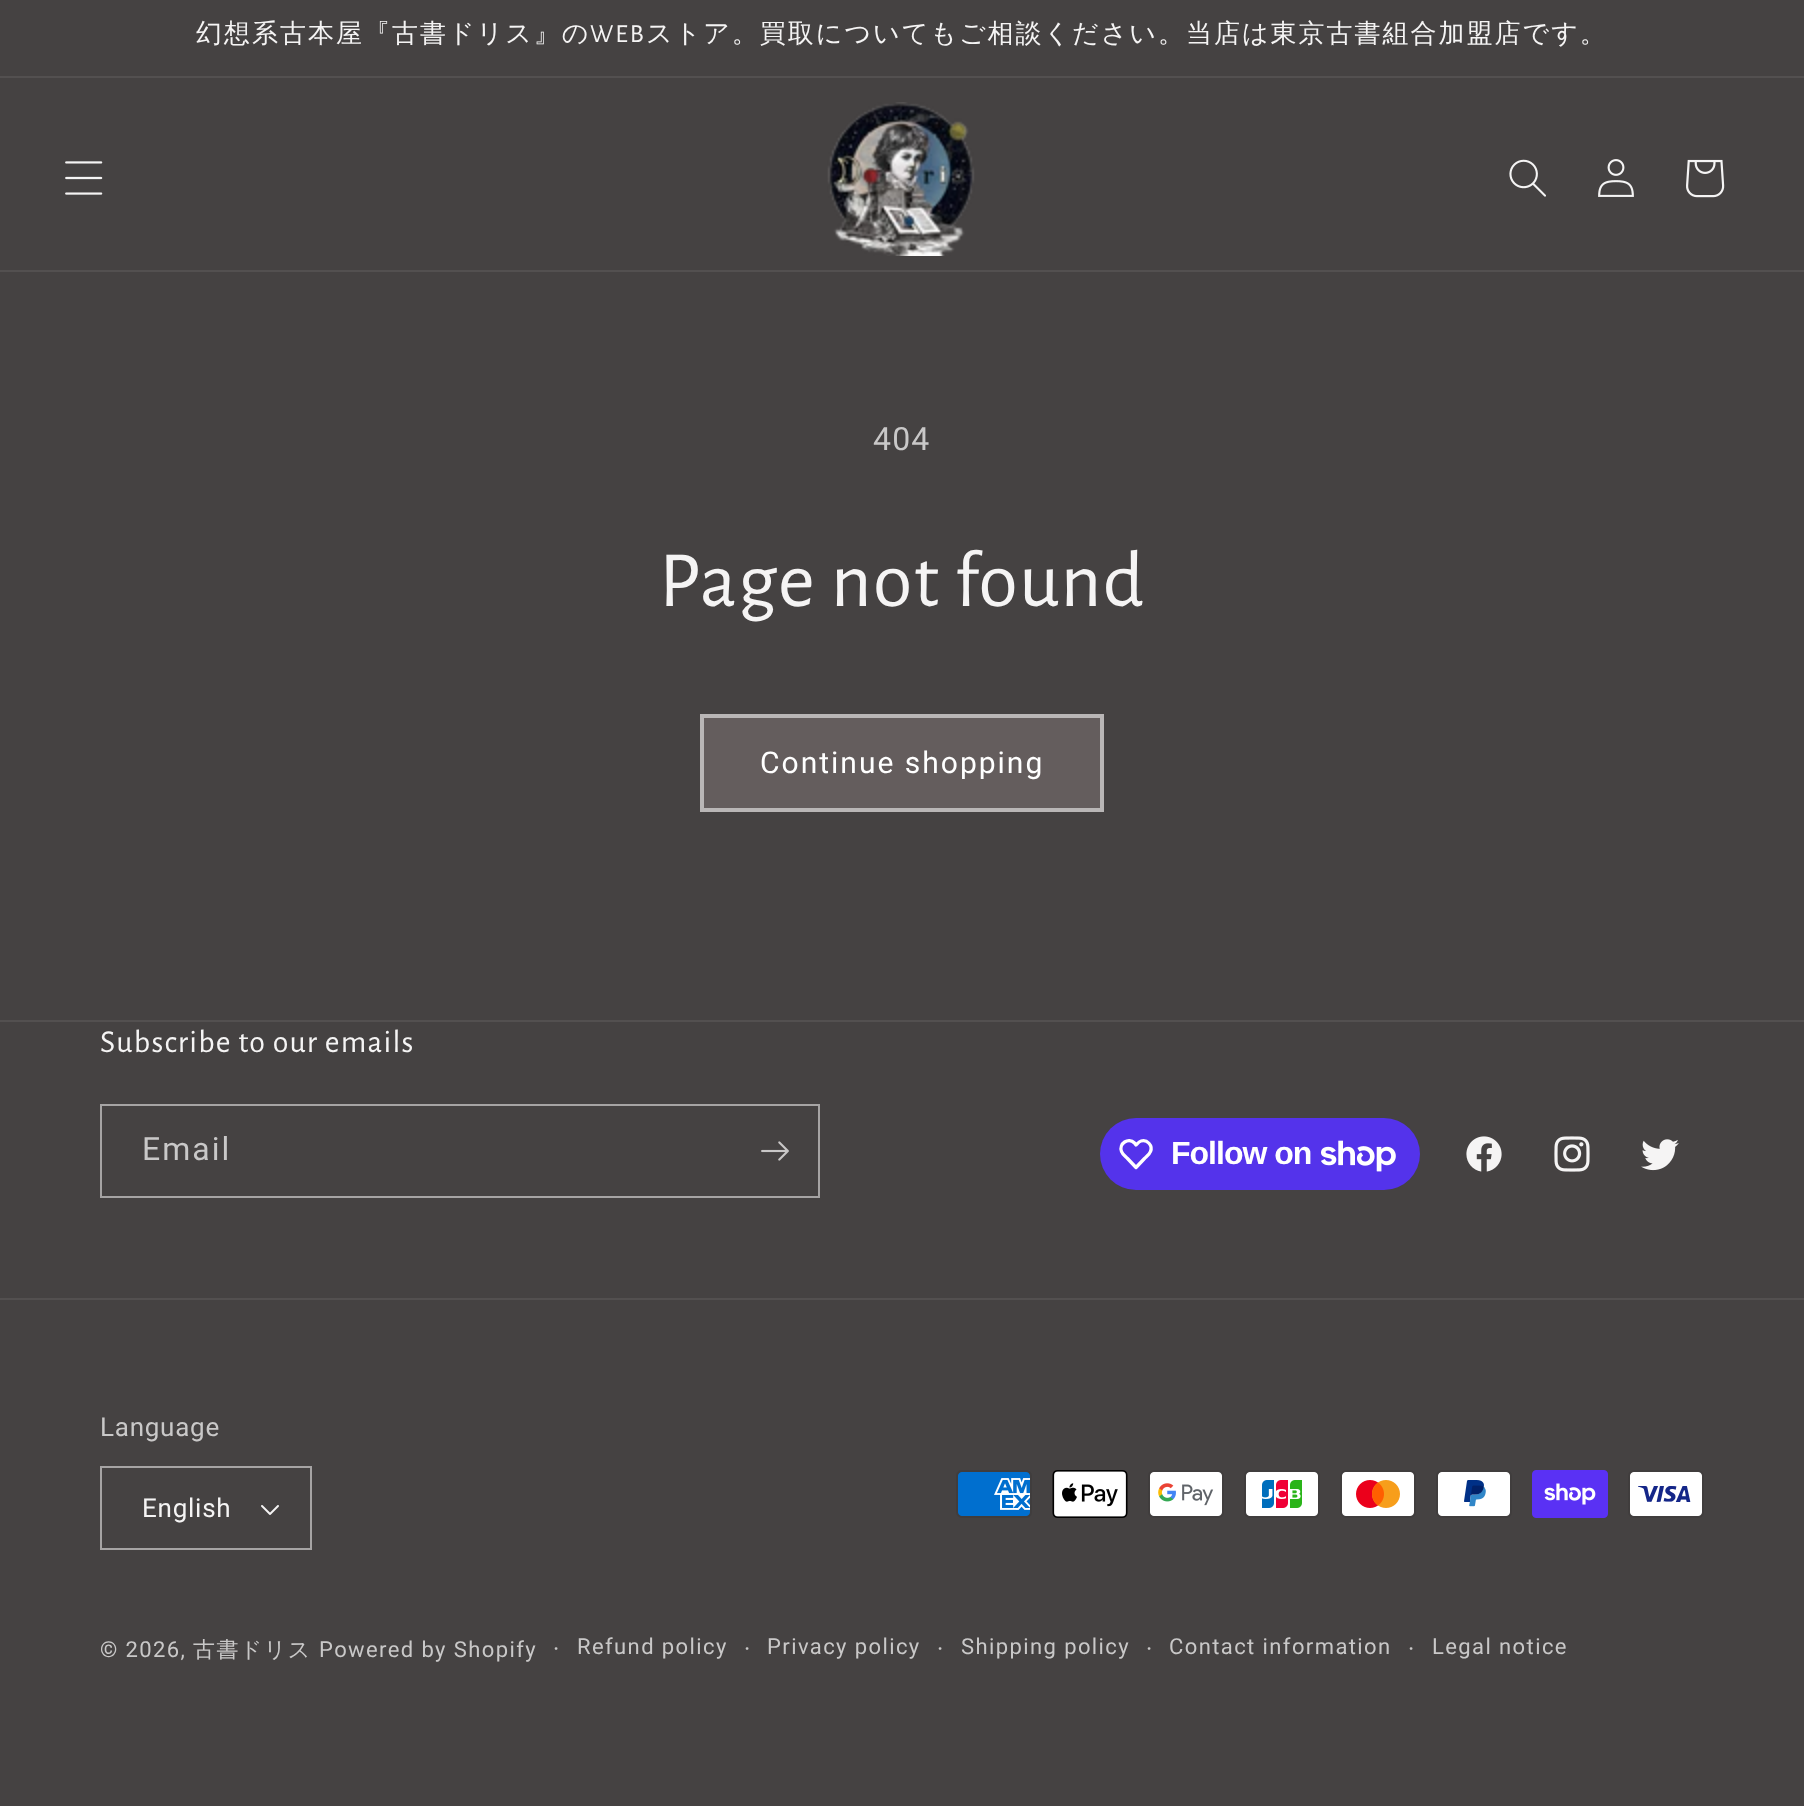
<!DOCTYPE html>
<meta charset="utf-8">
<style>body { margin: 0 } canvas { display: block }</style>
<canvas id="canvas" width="1804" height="1806"></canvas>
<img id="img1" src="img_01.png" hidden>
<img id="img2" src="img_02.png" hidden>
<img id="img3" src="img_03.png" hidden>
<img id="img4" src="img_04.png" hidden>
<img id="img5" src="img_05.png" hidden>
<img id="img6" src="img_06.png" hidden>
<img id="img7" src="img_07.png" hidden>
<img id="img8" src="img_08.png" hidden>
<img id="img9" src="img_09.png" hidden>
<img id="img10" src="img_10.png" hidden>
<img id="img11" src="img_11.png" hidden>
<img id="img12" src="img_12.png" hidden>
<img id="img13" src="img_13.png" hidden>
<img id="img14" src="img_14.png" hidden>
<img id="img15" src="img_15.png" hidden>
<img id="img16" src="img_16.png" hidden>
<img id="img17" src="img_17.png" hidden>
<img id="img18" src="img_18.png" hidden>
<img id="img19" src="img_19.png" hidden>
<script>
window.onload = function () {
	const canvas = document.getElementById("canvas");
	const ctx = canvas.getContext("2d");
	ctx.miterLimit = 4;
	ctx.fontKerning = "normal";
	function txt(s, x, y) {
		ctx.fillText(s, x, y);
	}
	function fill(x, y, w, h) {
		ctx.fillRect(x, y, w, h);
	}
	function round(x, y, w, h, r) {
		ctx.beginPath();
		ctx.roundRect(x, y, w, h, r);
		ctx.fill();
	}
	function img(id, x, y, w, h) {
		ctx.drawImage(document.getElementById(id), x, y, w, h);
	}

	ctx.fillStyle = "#454242";
	fill(0, 0, 1804, 1806);
	ctx.fillStyle = "#535050";
	fill(0, 76, 1804, 2);
	fill(0, 270, 1804, 2);
	img("img1", 65, 161, 38, 34);
	img("img2", 827, 102, 148, 154);
	img("img3", 1509, 159, 37, 38);
	img("img4", 1598, 159, 36, 38);
	img("img5", 1686, 159, 39, 39);
	ctx.fillStyle = "#645D5D";
	fill(704, 718, 396, 90);
	ctx.strokeStyle = "#B9B6B6";
	ctx.lineWidth = 4;
	ctx.strokeRect(702, 716, 400, 94);
	ctx.fillStyle = "#535050";
	fill(0, 1020, 1804, 2);
	ctx.strokeStyle = "#A6A4A4";
	ctx.lineWidth = 2;
	ctx.strokeRect(101, 1105, 718, 92);
	img("img6", 761, 1141, 28, 20);
	ctx.fillStyle = "#5433EB";
	round(1100, 1118, 320, 72, 36);
	ctx.beginPath();
	ctx.moveTo(1134.5, 1143);
	ctx.lineTo(1136, 1145);
	ctx.bezierCurveTo(1137.5, 1143.5, 1139, 1141.5, 1141, 1141);
	ctx.bezierCurveTo(1147, 1139, 1153, 1145.5, 1150.5, 1151.5);
	ctx.bezierCurveTo(1149.5, 1154.5, 1146.5, 1156.5, 1144.5, 1158.5);
	ctx.lineTo(1136, 1167.5);
	ctx.lineTo(1127.5, 1158.5);
	ctx.bezierCurveTo(1125.5, 1156.5, 1122.5, 1154.5, 1121.5, 1151.5);
	ctx.bezierCurveTo(1118.5, 1143.5, 1128.5, 1137, 1134.5, 1143);
	ctx.closePath();
	ctx.strokeStyle = "#FFFFFF";
	ctx.lineWidth = 3.3;
	ctx.lineJoin = "round";
	ctx.stroke();
	img("img7", 1321, 1140, 75, 32);
	img("img8", 1466, 1136, 36, 36);
	img("img9", 1554, 1136, 36, 36);
	img("img10", 1641, 1139, 38, 32);
	ctx.fillStyle = "#535050";
	fill(0, 1298, 1804, 2);
	img("img11", 261, 1505, 18, 10);
	ctx.strokeStyle = "#A6A4A4";
	ctx.lineWidth = 2;
	ctx.lineJoin = "miter";
	ctx.strokeRect(101, 1467, 210, 82);
	img("img12", 956, 1470, 76, 48);
	img("img13", 1052, 1470, 76, 48);
	img("img14", 1148, 1470, 76, 48);
	img("img15", 1244, 1470, 76, 48);
	img("img16", 1340, 1470, 76, 48);
	img("img17", 1436, 1470, 76, 48);
	img("img18", 1532, 1470, 76, 48);
	img("img19", 1628, 1470, 76, 48);
	ctx.letterSpacing = "2px";
	ctx.font = "500 26px WenQuanYi Zen Hei";
	ctx.fillStyle = "#F5F4F4";
	txt("幻想系古本屋『古書ドリス』の", 196, 42);
	ctx.font = "26px Alegreya Sans";
	txt("WEB", 590, 42);
	ctx.font = "500 26px WenQuanYi Zen Hei";
	txt("ストア。買取についてもご相談ください。当店は東京古書組合加盟店です。", 646, 42);
	ctx.letterSpacing = "1.2px";
	ctx.font = "32px Roboto";
	ctx.fillStyle = "#C9C8C8";
	txt("404", 873, 450);
	ctx.font = "80px Alegreya Sans";
	ctx.fillStyle = "#F5F4F4";
	txt("Page not found", 659, 606);
	ctx.letterSpacing = "2px";
	ctx.font = "30px Roboto";
	ctx.fillStyle = "#FFFFFF";
	txt("Continue shopping", 760, 773);
	ctx.letterSpacing = "1.2px";
	ctx.font = "32px Alegreya Sans";
	ctx.fillStyle = "#F5F4F4";
	txt("Subscribe to our emails", 100, 1052);
	ctx.letterSpacing = "2px";
	ctx.font = "32px Roboto";
	ctx.fillStyle = "#C9C8C8";
	txt("Email", 142, 1160);
	ctx.letterSpacing = "-1px";
	ctx.font = "bold 32px Liberation Sans";
	ctx.fillStyle = "#FFFFFF";
	txt("Follow on", 1171, 1164);
	ctx.letterSpacing = "0.75px";
	ctx.font = "26px Roboto";
	ctx.fillStyle = "#C9C8C8";
	txt("Language", 100, 1436);
	ctx.fillStyle = "#F5F4F4";
	txt("English", 142, 1517);
	ctx.letterSpacing = "1.4px";
	ctx.font = "22px Roboto";
	ctx.fillStyle = "#C9C8C8";
	txt("© 2026,", 100, 1657);
	ctx.font = "500 22px WenQuanYi Zen Hei";
	txt("古書ドリス", 193, 1657);
	ctx.font = "22px Roboto";
	txt("Powered by Shopify", 319, 1657);
	ctx.font = "24px Roboto";
	txt("·", 553, 1657);
	ctx.font = "22px Roboto";
	txt("Refund policy", 577, 1654);
	ctx.font = "24px Roboto";
	txt("·", 744, 1657);
	ctx.font = "22px Roboto";
	txt("Privacy policy", 767, 1654);
	ctx.font = "24px Roboto";
	txt("·", 937, 1657);
	ctx.font = "22px Roboto";
	txt("Shipping policy", 961, 1654);
	ctx.font = "24px Roboto";
	txt("·", 1146, 1657);
	ctx.font = "22px Roboto";
	txt("Contact information", 1169, 1654);
	ctx.font = "24px Roboto";
	txt("·", 1408, 1657);
	ctx.font = "22px Roboto";
	txt("Legal notice", 1432, 1654);
};
</script>
